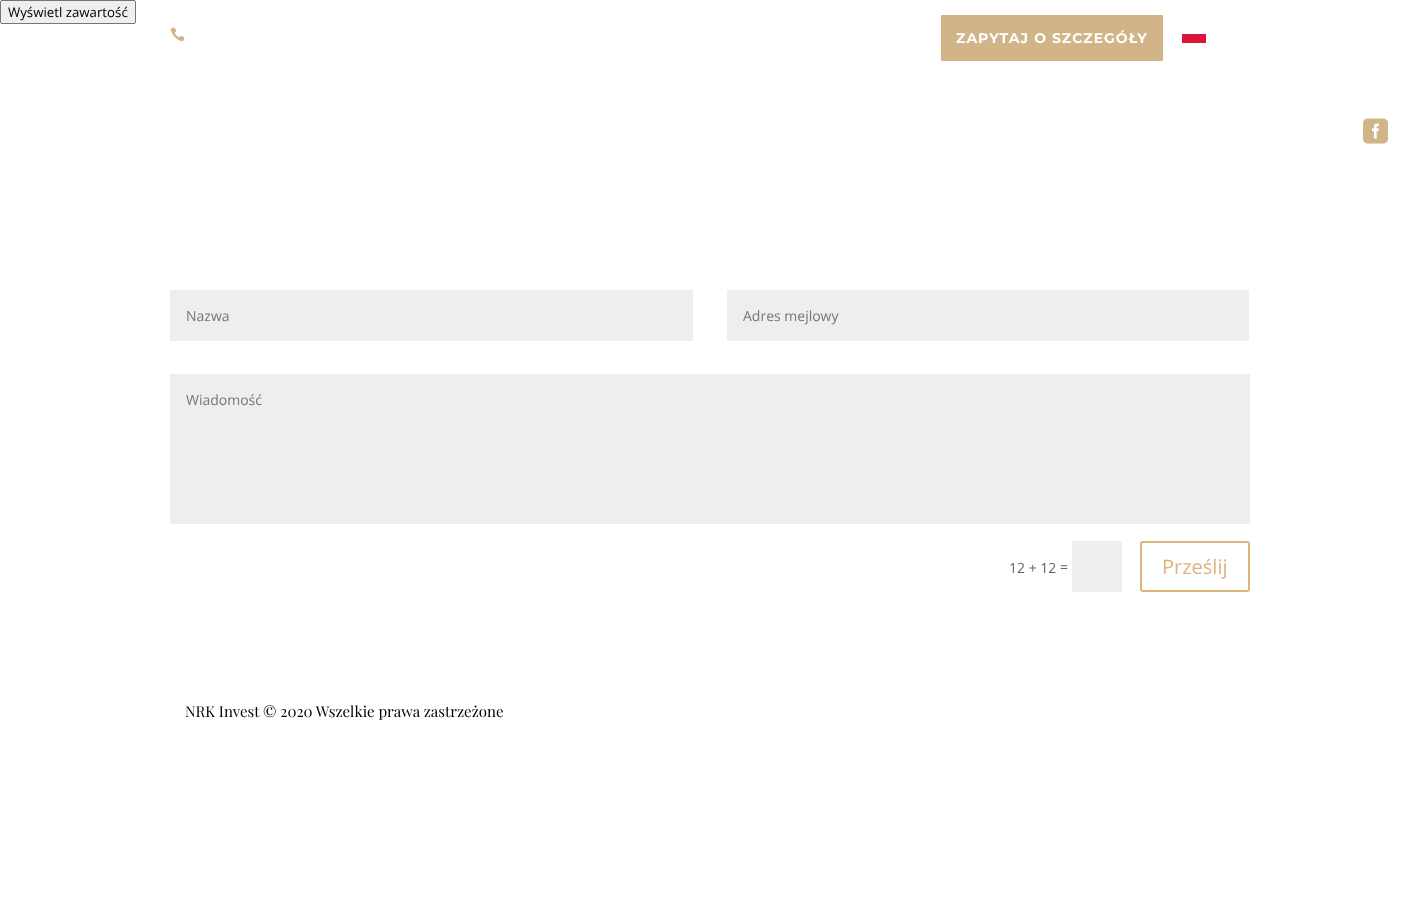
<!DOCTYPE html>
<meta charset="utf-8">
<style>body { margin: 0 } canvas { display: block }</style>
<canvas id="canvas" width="1419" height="920"></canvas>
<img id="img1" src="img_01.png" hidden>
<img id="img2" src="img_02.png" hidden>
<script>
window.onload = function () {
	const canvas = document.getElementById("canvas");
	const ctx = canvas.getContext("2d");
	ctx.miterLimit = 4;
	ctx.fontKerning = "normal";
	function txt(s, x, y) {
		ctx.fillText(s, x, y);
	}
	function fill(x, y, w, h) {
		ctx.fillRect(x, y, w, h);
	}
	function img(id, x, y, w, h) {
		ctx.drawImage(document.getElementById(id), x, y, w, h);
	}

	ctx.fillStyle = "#FFFFFF";
	fill(0, 0, 1419, 920);
	ctx.fillStyle = "#EFEFEF";
	ctx.beginPath();
	ctx.roundRect(0.5, 0.5, 135, 23, 1.5);
	ctx.fill();
	ctx.strokeStyle = "#767676";
	ctx.stroke();
	img("img1", 170, 27, 15, 15);
	ctx.fillStyle = "#D1B488";
	fill(941, 15, 222, 46);
	ctx.fillStyle = "#DC143C";
	fill(1182, 34, 24, 9);
	img("img2", 1363, 118, 25, 26);
	ctx.fillStyle = "#EEEEEE";
	fill(170, 290, 523, 51);
	fill(727, 290, 522, 51);
	fill(170, 374, 1080, 150);
	fill(1072, 541, 50, 51);
	ctx.beginPath();
	ctx.roundRect(1141, 542, 108, 49, 2);
	ctx.strokeStyle = "#DDB47A";
	ctx.lineWidth = 2;
	ctx.stroke();
	ctx.font = "13.25px Open Sans";
	ctx.fillStyle = "#000000";
	txt("Wyświetl zawartość", 8, 17);
	ctx.letterSpacing = "1px";
	ctx.font = "bold 14px Montserrat";
	ctx.fillStyle = "#FFFFFF";
	txt("ZAPYTAJ O SZCZEGÓŁY", 956, 43);
	ctx.letterSpacing = "0px";
	ctx.font = "14px Open Sans";
	ctx.fillStyle = "#757575";
	txt("Nazwa", 186, 321);
	txt("Adres mejlowy", 743, 321);
	txt("Wiadomość", 186, 405);
	ctx.fillStyle = "#666666";
	txt("12 + 12", 1009, 573);
	txt("=", 1060, 572);
	ctx.font = "20px Open Sans";
	ctx.fillStyle = "#DDB47A";
	txt("Prześlij", 1162, 574);
	ctx.font = "15px Playfair Display";
	ctx.fillStyle = "#000000";
	txt("NRK Invest © 2020 Wszelkie prawa zastrzeżone", 185, 717);
};
</script>
